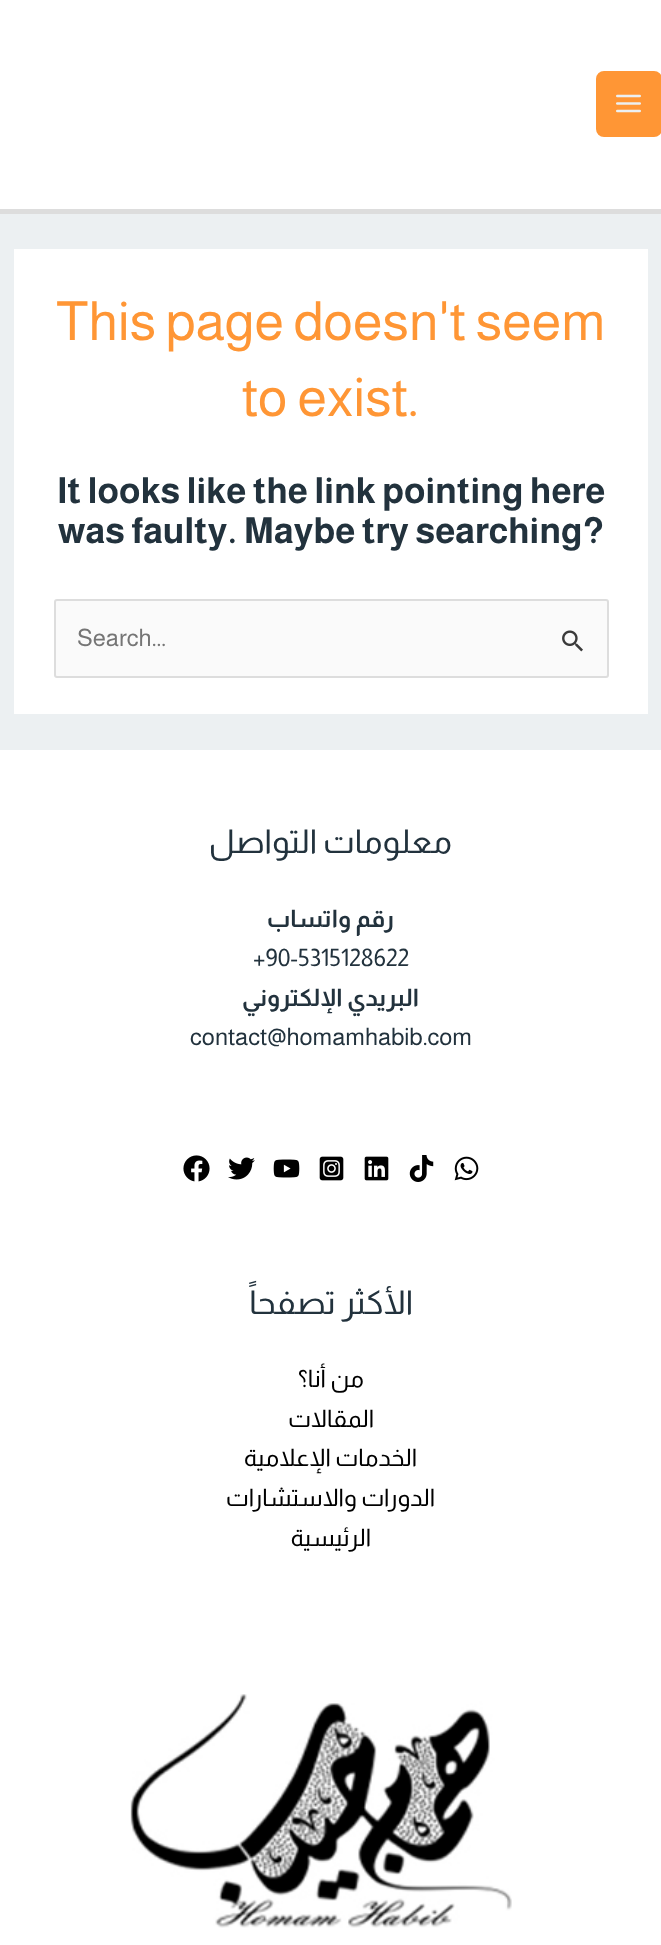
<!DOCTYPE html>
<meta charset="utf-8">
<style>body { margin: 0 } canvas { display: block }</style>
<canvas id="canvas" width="661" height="1945"></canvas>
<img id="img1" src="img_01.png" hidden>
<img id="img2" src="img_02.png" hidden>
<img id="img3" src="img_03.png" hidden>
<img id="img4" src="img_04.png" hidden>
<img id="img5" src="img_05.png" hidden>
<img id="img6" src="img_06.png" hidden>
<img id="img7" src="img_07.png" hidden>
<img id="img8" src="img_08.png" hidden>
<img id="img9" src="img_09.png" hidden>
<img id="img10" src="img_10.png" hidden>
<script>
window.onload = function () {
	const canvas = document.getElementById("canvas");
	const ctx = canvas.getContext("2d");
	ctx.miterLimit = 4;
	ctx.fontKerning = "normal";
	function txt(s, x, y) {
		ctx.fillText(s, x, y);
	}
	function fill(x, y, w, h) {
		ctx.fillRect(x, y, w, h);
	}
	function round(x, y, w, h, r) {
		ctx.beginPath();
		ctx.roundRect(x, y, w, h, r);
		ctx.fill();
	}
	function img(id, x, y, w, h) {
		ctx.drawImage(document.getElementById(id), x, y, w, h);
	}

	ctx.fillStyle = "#ECF0F2";
	fill(0, 0, 661, 1945);
	ctx.fillStyle = "#FFFFFF";
	fill(0, 0, 661, 209);
	ctx.fillStyle = "#DDDDDD";
	fill(0, 209, 661, 5);
	ctx.fillStyle = "#FF9635";
	round(596, 71, 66, 66, 8);
	img("img1", 616, 94, 25, 19);
	ctx.fillStyle = "#FFFFFF";
	fill(14, 249, 634, 465);
	ctx.fillStyle = "#FAFAFA";
	ctx.beginPath();
	ctx.roundRect(55, 600, 553, 77, 2);
	ctx.fill();
	ctx.strokeStyle = "#DDDDDD";
	ctx.lineWidth = 2;
	ctx.stroke();
	img("img2", 562, 630, 21, 22);
	ctx.fillStyle = "#FFFFFF";
	fill(0, 750, 661, 1195);
	img("img3", 183, 1155, 27, 27);
	img("img4", 228, 1157, 27, 23);
	img("img5", 273, 1159, 27, 19);
	img("img6", 319, 1156, 25, 25);
	img("img7", 364, 1156, 25, 25);
	img("img8", 409, 1155, 25, 27);
	img("img9", 454, 1156, 25, 25);
	img("img10", 130, 1694, 382, 234);
	ctx.font = "54px Almarai";
	ctx.fillStyle = "#FF9635";
	txt("This page doesn't seem", 56, 340);
	txt("to exist.", 242, 416);
	ctx.font = "bold 36px Almarai";
	ctx.fillStyle = "#22323D";
	txt("It looks like the link pointing here", 57, 503);
	txt("was faulty. Maybe try searching?", 58, 543);
	ctx.font = "24px Almarai";
	ctx.fillStyle = "#757575";
	txt("Search...", 77, 646);
	ctx.direction = "rtl";
	ctx.font = "33px Almarai";
	ctx.fillStyle = "#22323D";
	txt("معلومات التواصل", 452, 853);
	ctx.font = "bold 24px Almarai";
	txt("رقم واتساب", 394, 927);
	ctx.direction = "ltr";
	ctx.font = "24px Almarai";
	txt("+90-5315128622", 253, 966);
	ctx.direction = "rtl";
	ctx.font = "bold 24px Almarai";
	txt("البريدي الإلكتروني", 419, 1006);
	ctx.direction = "ltr";
	ctx.font = "24px Almarai";
	txt("contact@homamhabib.com", 190, 1045);
	ctx.direction = "rtl";
	ctx.font = "33px Almarai";
	txt("الأكثر تصفحاً", 413, 1314);
	ctx.font = "24px Almarai";
	ctx.fillStyle = "#000000";
	txt("من أنا؟", 364, 1387);
	txt("المقالات", 374, 1427);
	txt("الخدمات الإعلامية", 417, 1466);
	txt("الدورات والاستشارات", 435, 1506);
	txt("الرئيسية", 371, 1546);
};
</script>
